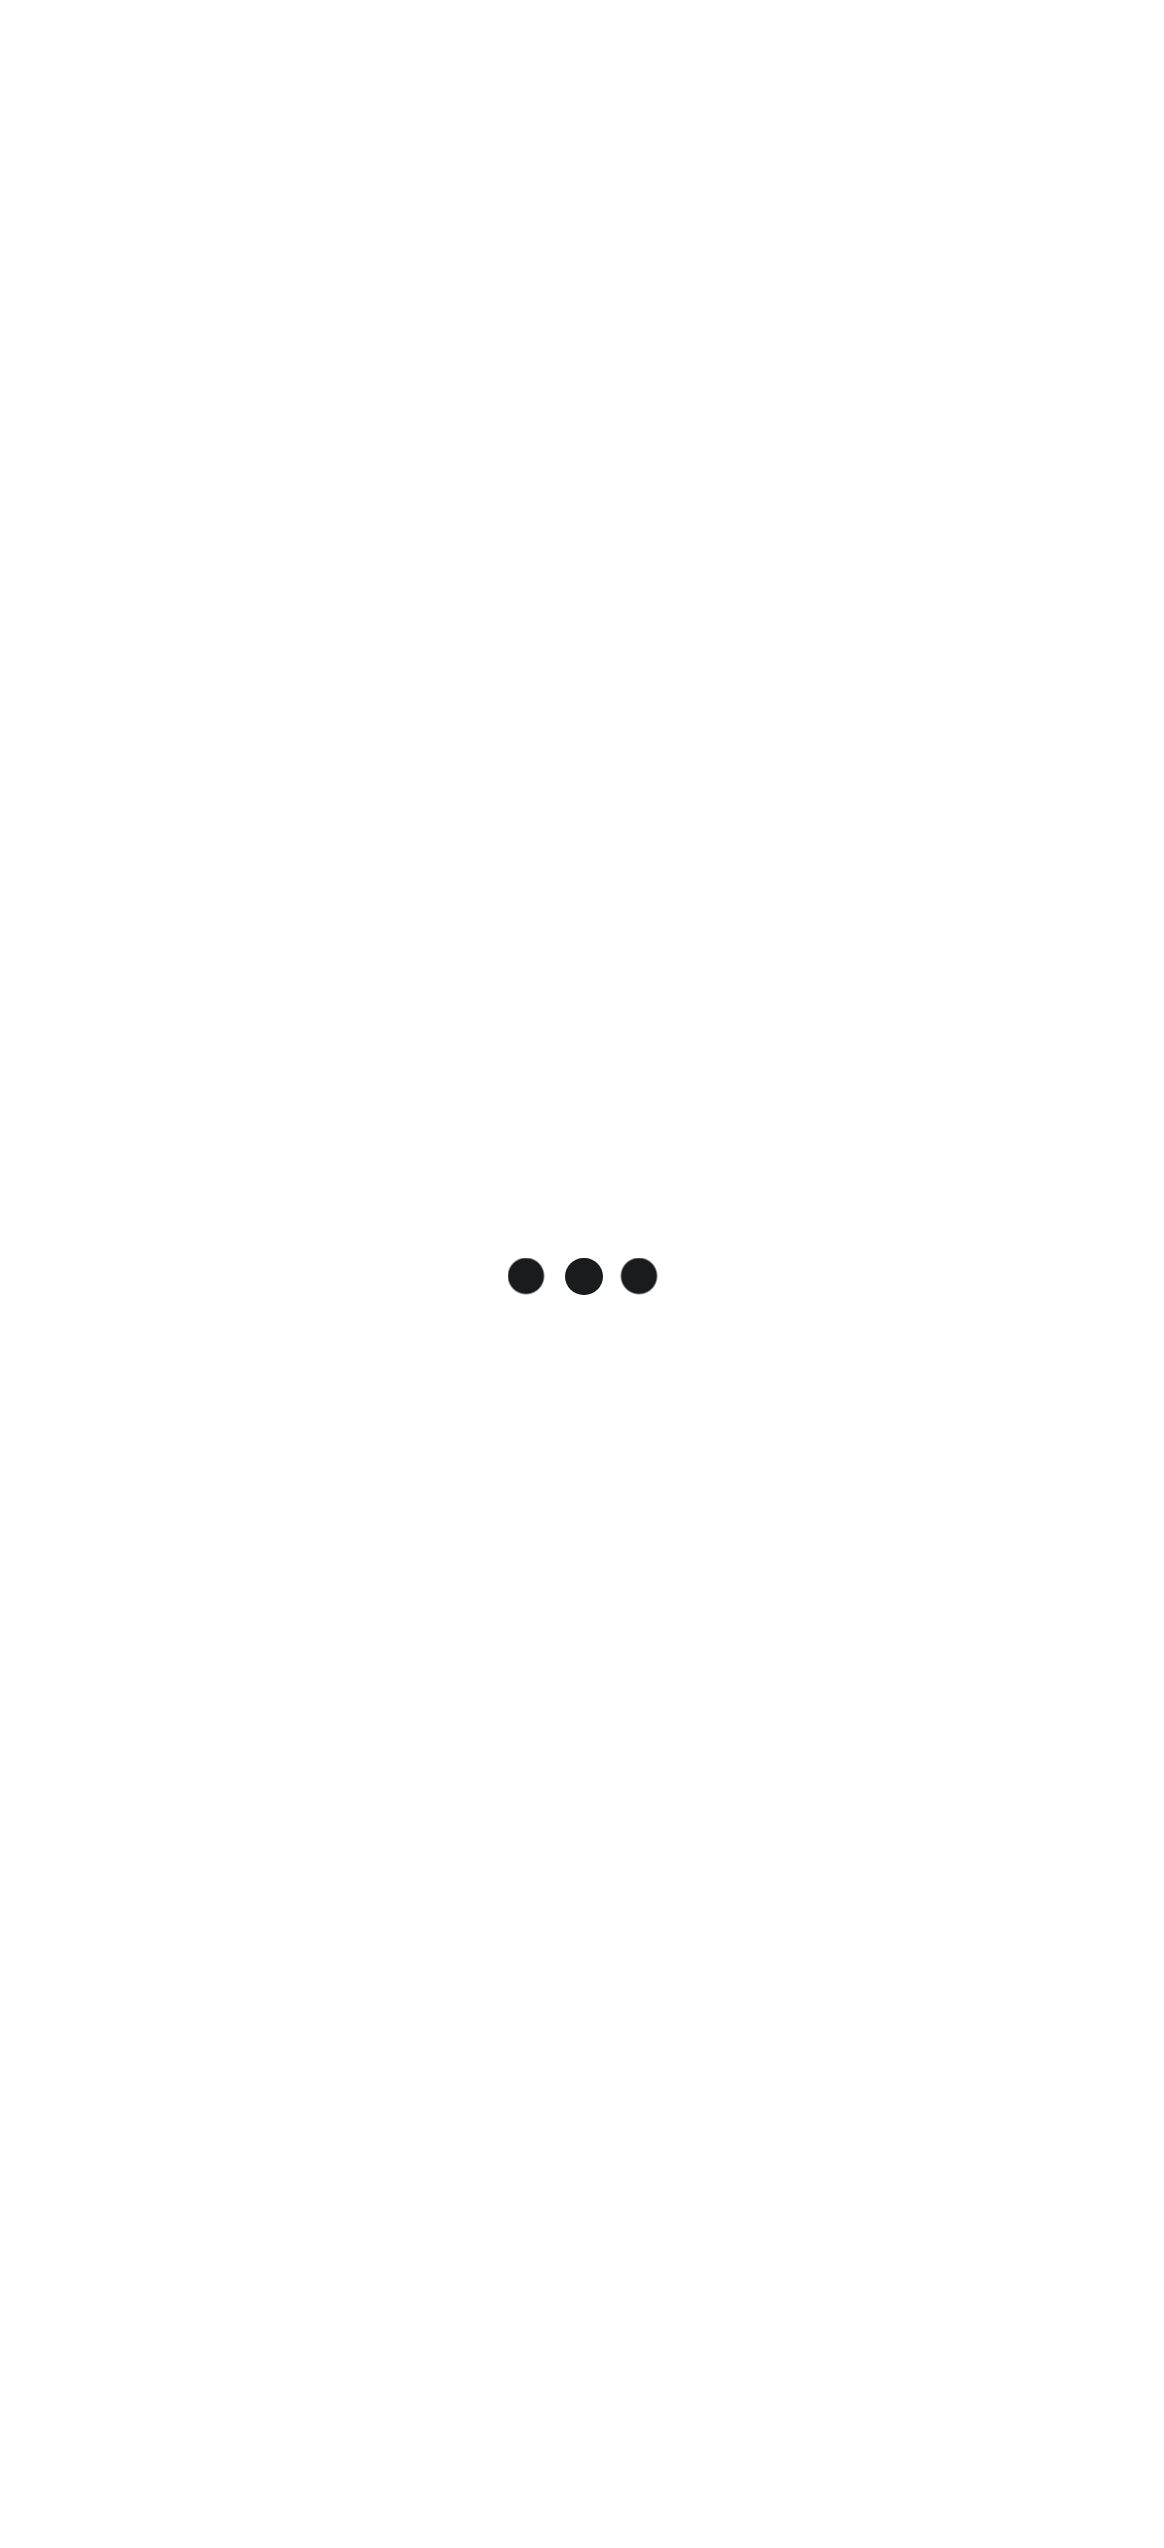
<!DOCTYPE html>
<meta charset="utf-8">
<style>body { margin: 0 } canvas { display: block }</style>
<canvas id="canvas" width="1164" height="2548"></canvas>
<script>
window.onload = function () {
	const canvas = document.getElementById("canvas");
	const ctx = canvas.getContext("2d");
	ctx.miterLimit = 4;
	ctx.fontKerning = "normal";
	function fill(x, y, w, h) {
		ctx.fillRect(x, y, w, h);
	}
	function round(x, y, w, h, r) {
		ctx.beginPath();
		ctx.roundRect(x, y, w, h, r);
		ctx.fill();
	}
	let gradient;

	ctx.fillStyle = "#FFFFFF";
	fill(0, 0, 1164, 2548);
	gradient = ctx.createRadialGradient(639, 1276, 0, 639, 1276, 19);
	gradient.addColorStop(0.9, "#191B1D");
	gradient.addColorStop(1, "#FFFFFF");
	ctx.fillStyle = gradient;
	fill(620, 1258, 38, 37);
	gradient = ctx.createRadialGradient(526, 1276, 0, 526, 1276, 19);
	gradient.addColorStop(0.9, "#191B1D");
	gradient.addColorStop(1, "#FFFFFF");
	ctx.fillStyle = gradient;
	fill(508, 1258, 37, 37);
	ctx.fillStyle = "#191B1D";
	round(565, 1258, 38, 37, 18.5);
};
</script>
